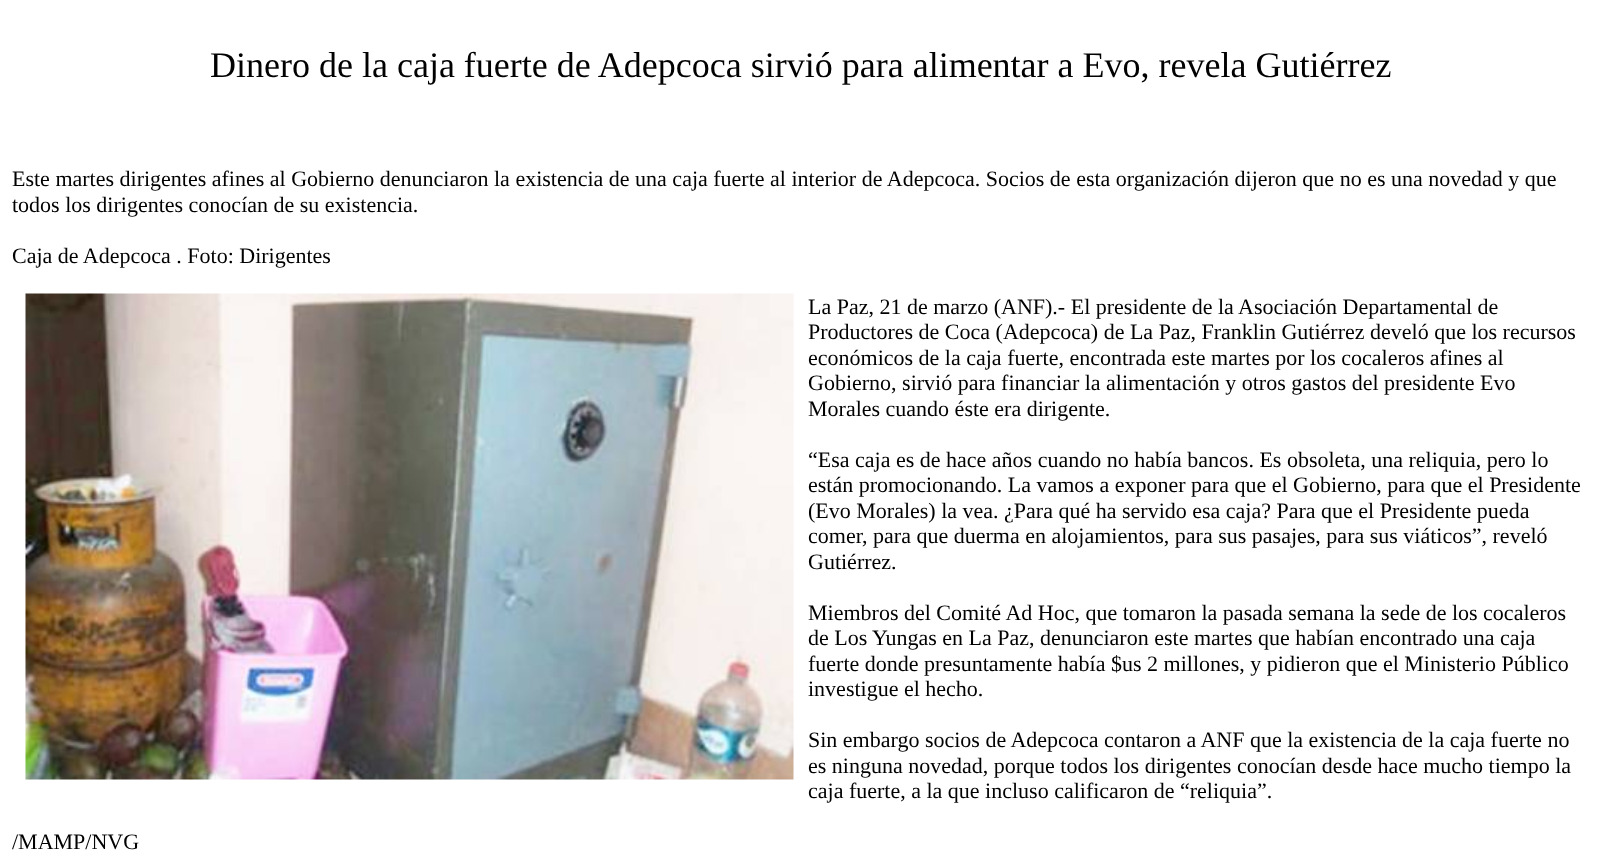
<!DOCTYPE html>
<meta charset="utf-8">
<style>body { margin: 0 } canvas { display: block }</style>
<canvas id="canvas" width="1600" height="864"></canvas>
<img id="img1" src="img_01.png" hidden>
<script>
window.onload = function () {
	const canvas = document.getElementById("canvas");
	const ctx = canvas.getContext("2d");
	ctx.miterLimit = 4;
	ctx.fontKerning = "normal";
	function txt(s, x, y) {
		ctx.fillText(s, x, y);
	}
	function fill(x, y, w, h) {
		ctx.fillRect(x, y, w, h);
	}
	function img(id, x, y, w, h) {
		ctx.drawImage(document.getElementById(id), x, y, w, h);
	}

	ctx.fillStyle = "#FFFFFF";
	fill(0, 0, 1600, 864);
	img("img1", 25, 293, 769, 487);
	ctx.font = "36px Liberation Serif";
	ctx.fillStyle = "#000000";
	txt("Dinero de la caja fuerte de Adepcoca sirvió para alimentar a Evo, revela Gutiérrez", 210, 77);
	ctx.font = "22px Liberation Serif";
	txt("Este martes dirigentes afines al Gobierno denunciaron la existencia de una caja fuerte al interior de Adepcoca. Socios de esta organización dijeron que no es una novedad y que", 12, 186);
	txt("todos los dirigentes conocían de su existencia.", 12, 212);
	txt("Caja de Adepcoca . Foto: Dirigentes", 12, 263);
	txt("La Paz, 21 de marzo (ANF).- El presidente de la Asociación Departamental de", 808, 314);
	txt("Productores de Coca (Adepcoca) de La Paz, Franklin Gutiérrez develó que los recursos", 808, 339);
	txt("económicos de la caja fuerte, encontrada este martes por los cocaleros afines al", 808, 365);
	txt("Gobierno, sirvió para financiar la alimentación y otros gastos del presidente Evo", 808, 390);
	txt("Morales cuando éste era dirigente.", 808, 416);
	txt("“Esa caja es de hace años cuando no había bancos. Es obsoleta, una reliquia, pero lo", 808, 467);
	txt("están promocionando. La vamos a exponer para que el Gobierno, para que el Presidente", 808, 492);
	txt("(Evo Morales) la vea. ¿Para qué ha servido esa caja? Para que el Presidente pueda", 808, 518);
	txt("comer, para que duerma en alojamientos, para sus pasajes, para sus viáticos”, reveló", 808, 543);
	txt("Gutiérrez.", 808, 569);
	txt("Miembros del Comité Ad Hoc, que tomaron la pasada semana la sede de los cocaleros", 808, 620);
	txt("de Los Yungas en La Paz, denunciaron este martes que habían encontrado una caja", 808, 645);
	txt("fuerte donde presuntamente había $us 2 millones, y pidieron que el Ministerio Público", 808, 671);
	txt("investigue el hecho.", 808, 696);
	txt("Sin embargo socios de Adepcoca contaron a ANF que la existencia de la caja fuerte no", 808, 747);
	txt("es ninguna novedad, porque todos los dirigentes conocían desde hace mucho tiempo la", 808, 773);
	txt("caja fuerte, a la que incluso calificaron de “reliquia”.", 808, 798);
	txt("/MAMP/NVG", 12, 849);
};
</script>
